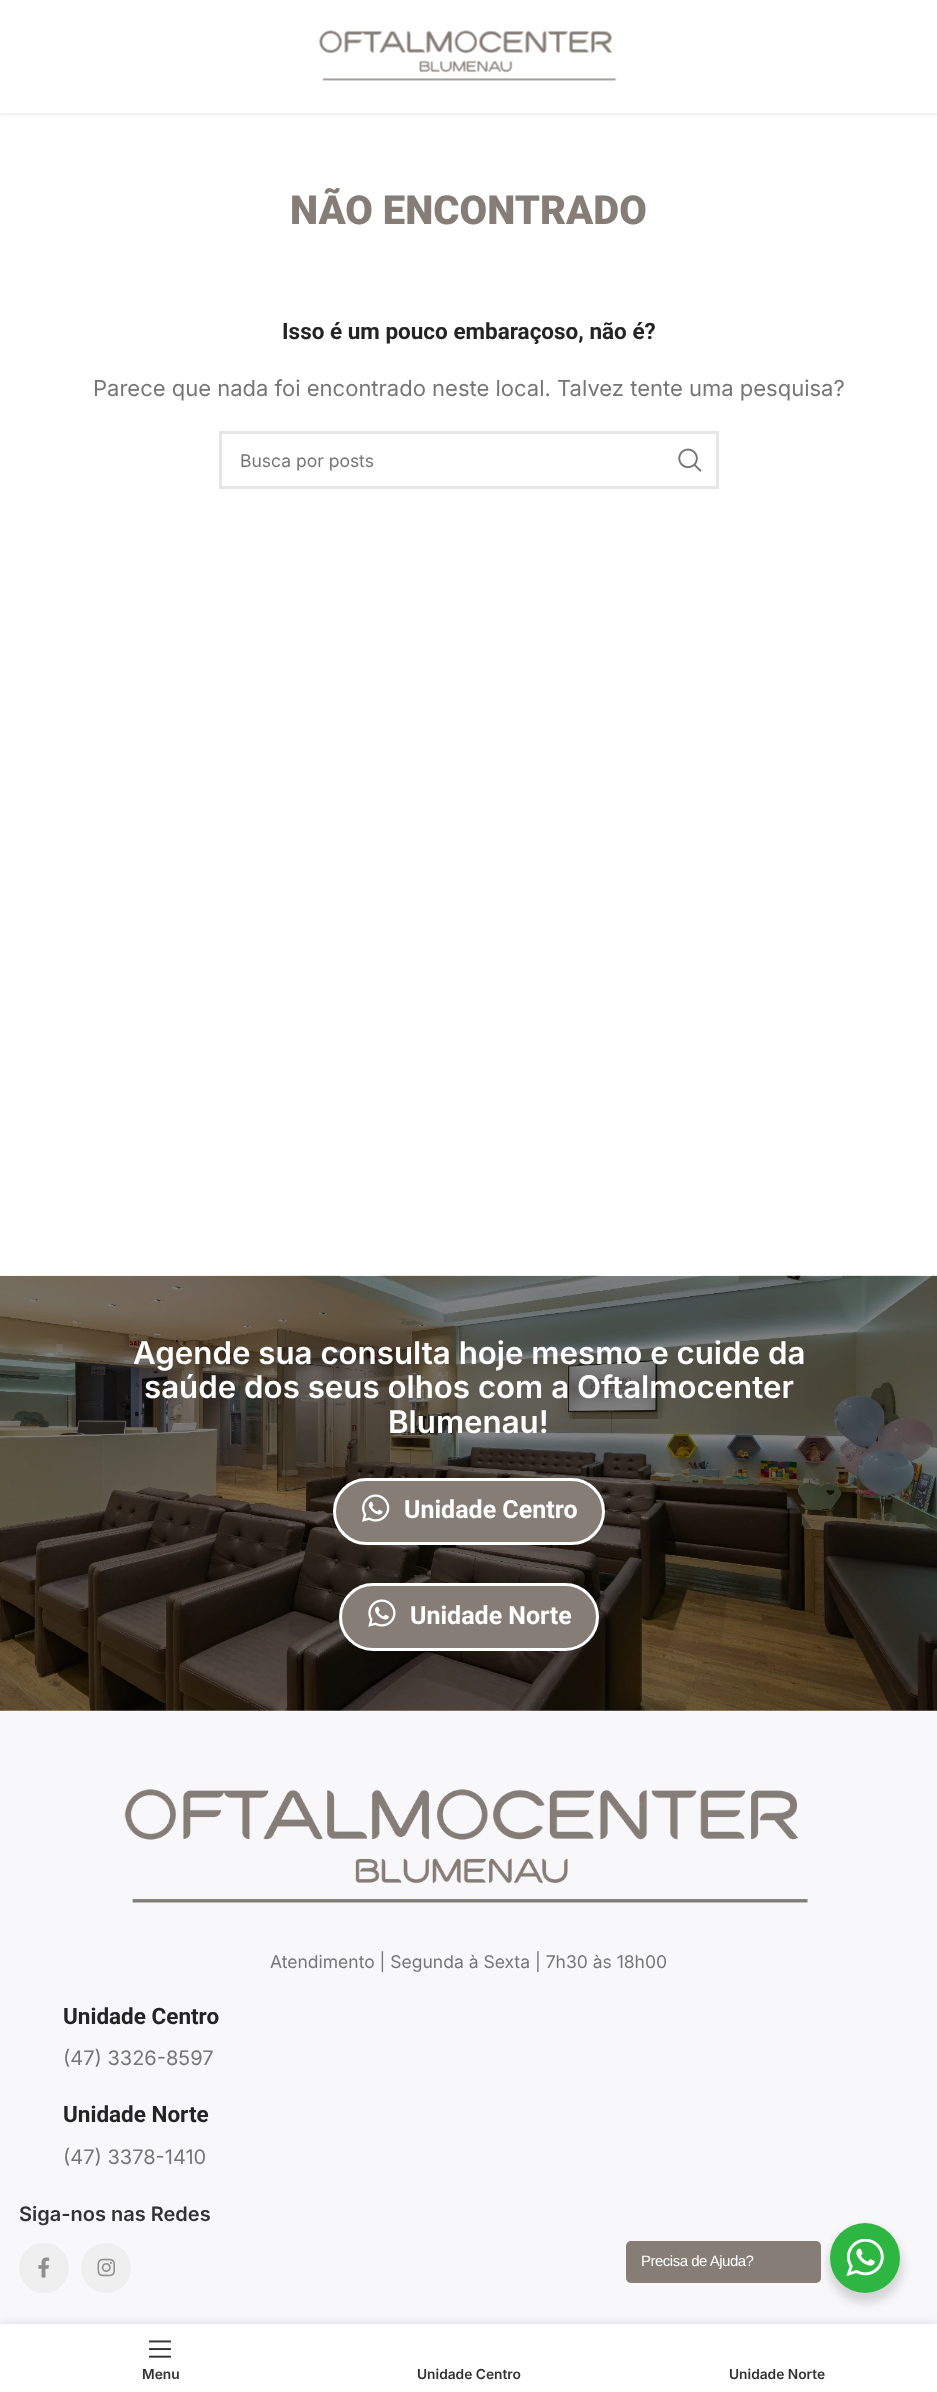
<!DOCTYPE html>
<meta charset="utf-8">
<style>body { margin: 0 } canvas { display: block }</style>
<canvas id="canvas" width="937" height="2392"></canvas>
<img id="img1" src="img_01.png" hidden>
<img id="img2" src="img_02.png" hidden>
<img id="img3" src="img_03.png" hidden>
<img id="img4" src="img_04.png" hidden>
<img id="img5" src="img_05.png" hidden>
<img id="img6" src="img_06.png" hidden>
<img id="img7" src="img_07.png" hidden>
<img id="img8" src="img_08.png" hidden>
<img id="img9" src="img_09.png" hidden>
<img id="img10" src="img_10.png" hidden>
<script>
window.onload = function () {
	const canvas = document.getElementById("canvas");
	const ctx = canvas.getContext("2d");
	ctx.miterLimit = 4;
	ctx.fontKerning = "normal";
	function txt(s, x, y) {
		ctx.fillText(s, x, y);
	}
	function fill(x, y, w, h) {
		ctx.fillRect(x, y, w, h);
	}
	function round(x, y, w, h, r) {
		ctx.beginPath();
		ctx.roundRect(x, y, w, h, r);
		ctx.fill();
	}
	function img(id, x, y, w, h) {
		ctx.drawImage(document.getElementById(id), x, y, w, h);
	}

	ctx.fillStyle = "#FFFFFF";
	fill(0, 0, 937, 2392);
	ctx.fillStyle = "rgba(0, 0, 0, 0.1)";
	ctx.filter = "blur(2px)";
	ctx.beginPath();
	ctx.rect(0, 1, 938, 113);
	ctx.fill();
	ctx.filter = "none";
	ctx.fillStyle = "#FFFFFF";
	fill(0, 0, 937, 113);
	img("img1", 319, 30, 298, 51);
	ctx.strokeStyle = "#E6E6E6";
	ctx.lineWidth = 3;
	ctx.strokeRect(220.5, 432.5, 497, 55);
	img("img2", 678, 448, 24, 24);
	img("img3", 0, 1275, 937, 436);
	ctx.fillStyle = "#857D76";
	ctx.beginPath();
	ctx.roundRect(334.5, 1479.5, 269, 64, 32);
	ctx.fill();
	ctx.strokeStyle = "#FFFFFF";
	ctx.stroke();
	img("img4", 362, 1494, 28, 28);
	ctx.beginPath();
	ctx.roundRect(340.5, 1584.5, 257, 65, 32.5);
	ctx.fill();
	ctx.stroke();
	img("img5", 368, 1599, 28, 28);
	ctx.fillStyle = "#F8F7F9";
	fill(0, 1711, 937, 613);
	img("img6", 124, 1789, 684, 114);
	ctx.fillStyle = "#EFEFEF";
	ctx.beginPath();
	ctx.arc(44, 2268, 25, 0, Math.PI * 2);
	ctx.fill();
	img("img7", 38, 2257, 12, 21);
	ctx.beginPath();
	ctx.arc(106, 2268, 25, 0, Math.PI * 2);
	ctx.fill();
	img("img8", 97, 2258, 18, 19);
	ctx.fillStyle = "rgba(0, 0, 0, 0.14)";
	ctx.filter = "blur(5px)";
	ctx.beginPath();
	ctx.roundRect(828, 2228, 75, 75, 37.5);
	ctx.fill();
	ctx.filter = "none";
	ctx.fillStyle = "#857D76";
	round(626, 2241, 195, 42, 5);
	ctx.fillStyle = "#2DB742";
	ctx.beginPath();
	ctx.arc(865, 2258, 35, 0, Math.PI * 2);
	ctx.fill();
	img("img9", 846, 2239, 38, 37);
	ctx.fillStyle = "rgba(0, 0, 0, 0.12)";
	ctx.filter = "blur(5.5px)";
	ctx.beginPath();
	ctx.rect(0, 2324, 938, 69);
	ctx.fill();
	ctx.filter = "none";
	ctx.fillStyle = "#FFFFFF";
	fill(0, 2324, 937, 68);
	img("img10", 149, 2340, 22, 18);
	ctx.font = "900 40px Roboto";
	ctx.fillStyle = "#857D76";
	txt("NÃO ENCONTRADO", 290, 224);
	ctx.font = "bold 22.5px Roboto";
	ctx.fillStyle = "#242424";
	txt("Isso é um pouco embaraçoso, não é?", 282, 339);
	ctx.font = "22px Inter";
	ctx.fillStyle = "#767676";
	txt("Parece que nada foi encontrado neste local. Talvez tente uma pesquisa?", 93, 396);
	ctx.font = "17.5px Inter";
	txt("Busca por posts", 240, 467);
	ctx.font = "600 31.25px Inter";
	ctx.fillStyle = "#FFFFFF";
	txt("Agende sua consulta hoje mesmo e cuide da", 133, 1364);
	txt("saúde dos seus olhos com a Oftalmocenter", 144, 1398);
	txt("Blumenau!", 388, 1433);
	ctx.font = "bold 25px Roboto";
	txt("Unidade Centro", 404, 1518);
	txt("Unidade Norte", 410, 1624);
	ctx.font = "17.5px Inter";
	ctx.fillStyle = "#767676";
	txt("Atendimento | Segunda à Sexta | 7h30 às 18h00", 270, 1968);
	ctx.font = "bold 22.5px Roboto";
	ctx.fillStyle = "#242424";
	txt("Unidade Centro", 63, 2024);
	ctx.font = "20px Inter";
	ctx.fillStyle = "#767676";
	txt("(47) 3326-8597", 63, 2065);
	ctx.font = "bold 22.5px Roboto";
	ctx.fillStyle = "#242424";
	txt("Unidade Norte", 63, 2122);
	ctx.font = "20px Inter";
	ctx.fillStyle = "#767676";
	txt("(47) 3378-1410", 63, 2164);
	ctx.font = "600 20px Inter";
	ctx.fillStyle = "#333333";
	txt("Siga-nos nas Redes", 19, 2221);
	ctx.letterSpacing = "-0.5px";
	ctx.font = "15px Liberation Sans";
	ctx.fillStyle = "#FFFFFF";
	txt("Precisa de Ajuda?", 641, 2266);
	ctx.letterSpacing = "0px";
	ctx.font = "600 13.75px Inter";
	ctx.fillStyle = "#333333";
	txt("Menu", 142, 2379);
	txt("Unidade Centro", 417, 2379);
	txt("Unidade Norte", 729, 2379);
};
</script>
